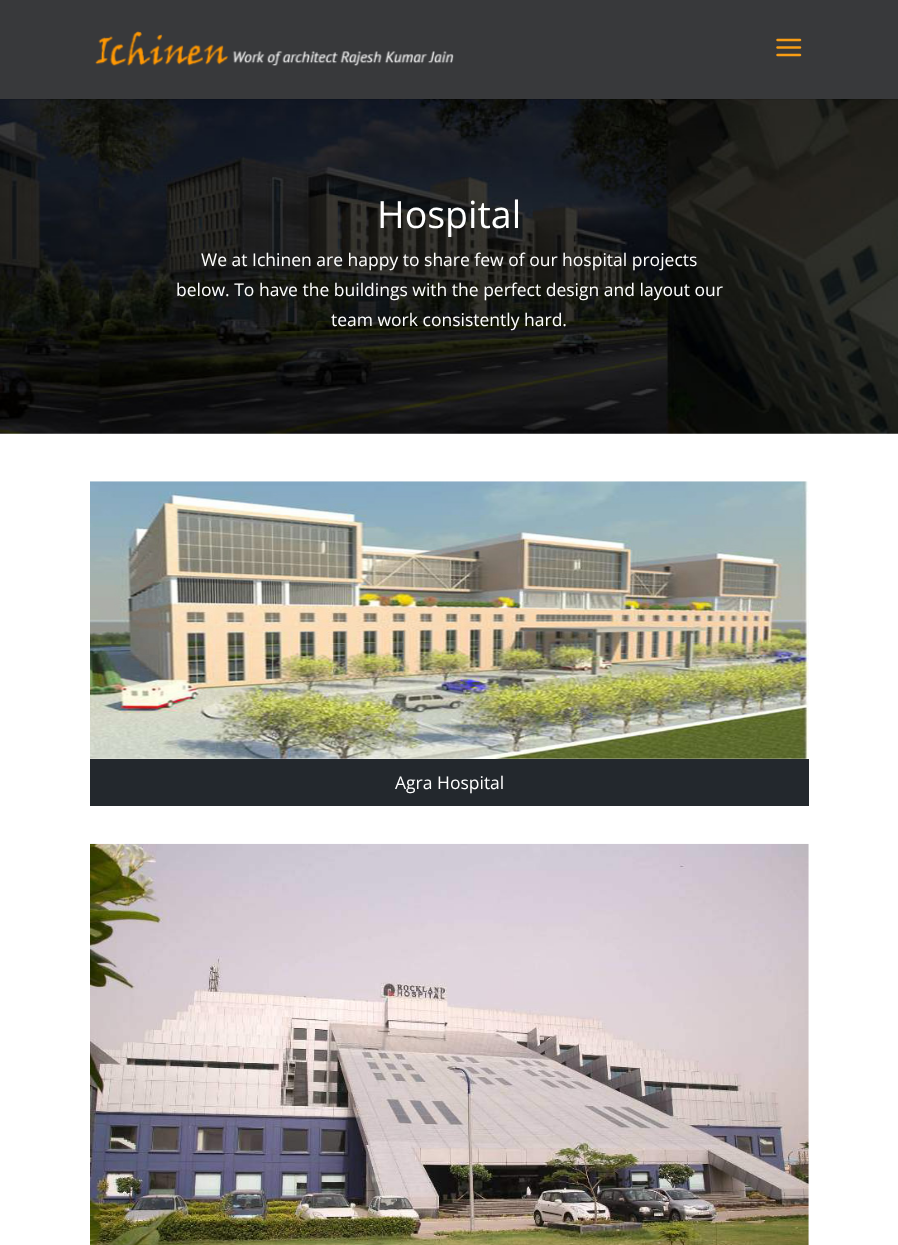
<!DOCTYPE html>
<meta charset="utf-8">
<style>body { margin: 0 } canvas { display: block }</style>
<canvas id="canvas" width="898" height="1245"></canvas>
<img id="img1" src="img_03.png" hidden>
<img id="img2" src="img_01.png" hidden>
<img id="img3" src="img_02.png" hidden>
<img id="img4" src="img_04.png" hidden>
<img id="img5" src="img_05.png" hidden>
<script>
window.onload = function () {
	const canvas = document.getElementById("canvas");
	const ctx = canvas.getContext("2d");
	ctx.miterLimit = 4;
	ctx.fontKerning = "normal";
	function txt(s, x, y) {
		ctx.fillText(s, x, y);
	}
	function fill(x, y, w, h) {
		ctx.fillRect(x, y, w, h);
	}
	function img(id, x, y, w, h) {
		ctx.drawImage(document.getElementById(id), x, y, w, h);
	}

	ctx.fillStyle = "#FFFFFF";
	fill(0, 0, 898, 1245);
	img("img1", 0, 99, 898, 335);
	ctx.fillStyle = "rgba(0, 0, 0, 0.1)";
	ctx.beginPath();
	ctx.moveTo(0, 99);
	ctx.lineTo(0, 100);
	ctx.lineTo(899, 100);
	ctx.lineTo(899, 0);
	ctx.lineTo(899, 99);
	ctx.closePath();
	ctx.fill();
	ctx.fillStyle = "#38393B";
	fill(0, 0, 898, 99);
	img("img2", 95, 31, 359, 35);
	img("img3", 776, 38, 26, 19);
	img("img4", 90, 481, 719, 278);
	ctx.fillStyle = "#23282D";
	fill(90, 759, 719, 47);
	img("img5", 90, 843, 719, 402);
	ctx.font = "37.5px Open Sans";
	ctx.fillStyle = "#FFFFFF";
	txt("Hospital", 377, 228);
	ctx.font = "17.5px Open Sans";
	txt("We at Ichinen are happy to share few of our hospital projects", 201, 266);
	txt("below. To have the buildings with the perfect design and layout our", 176, 296);
	txt("team work consistently hard.", 331, 326);
	txt("Agra Hospital", 395, 789);
};
</script>
